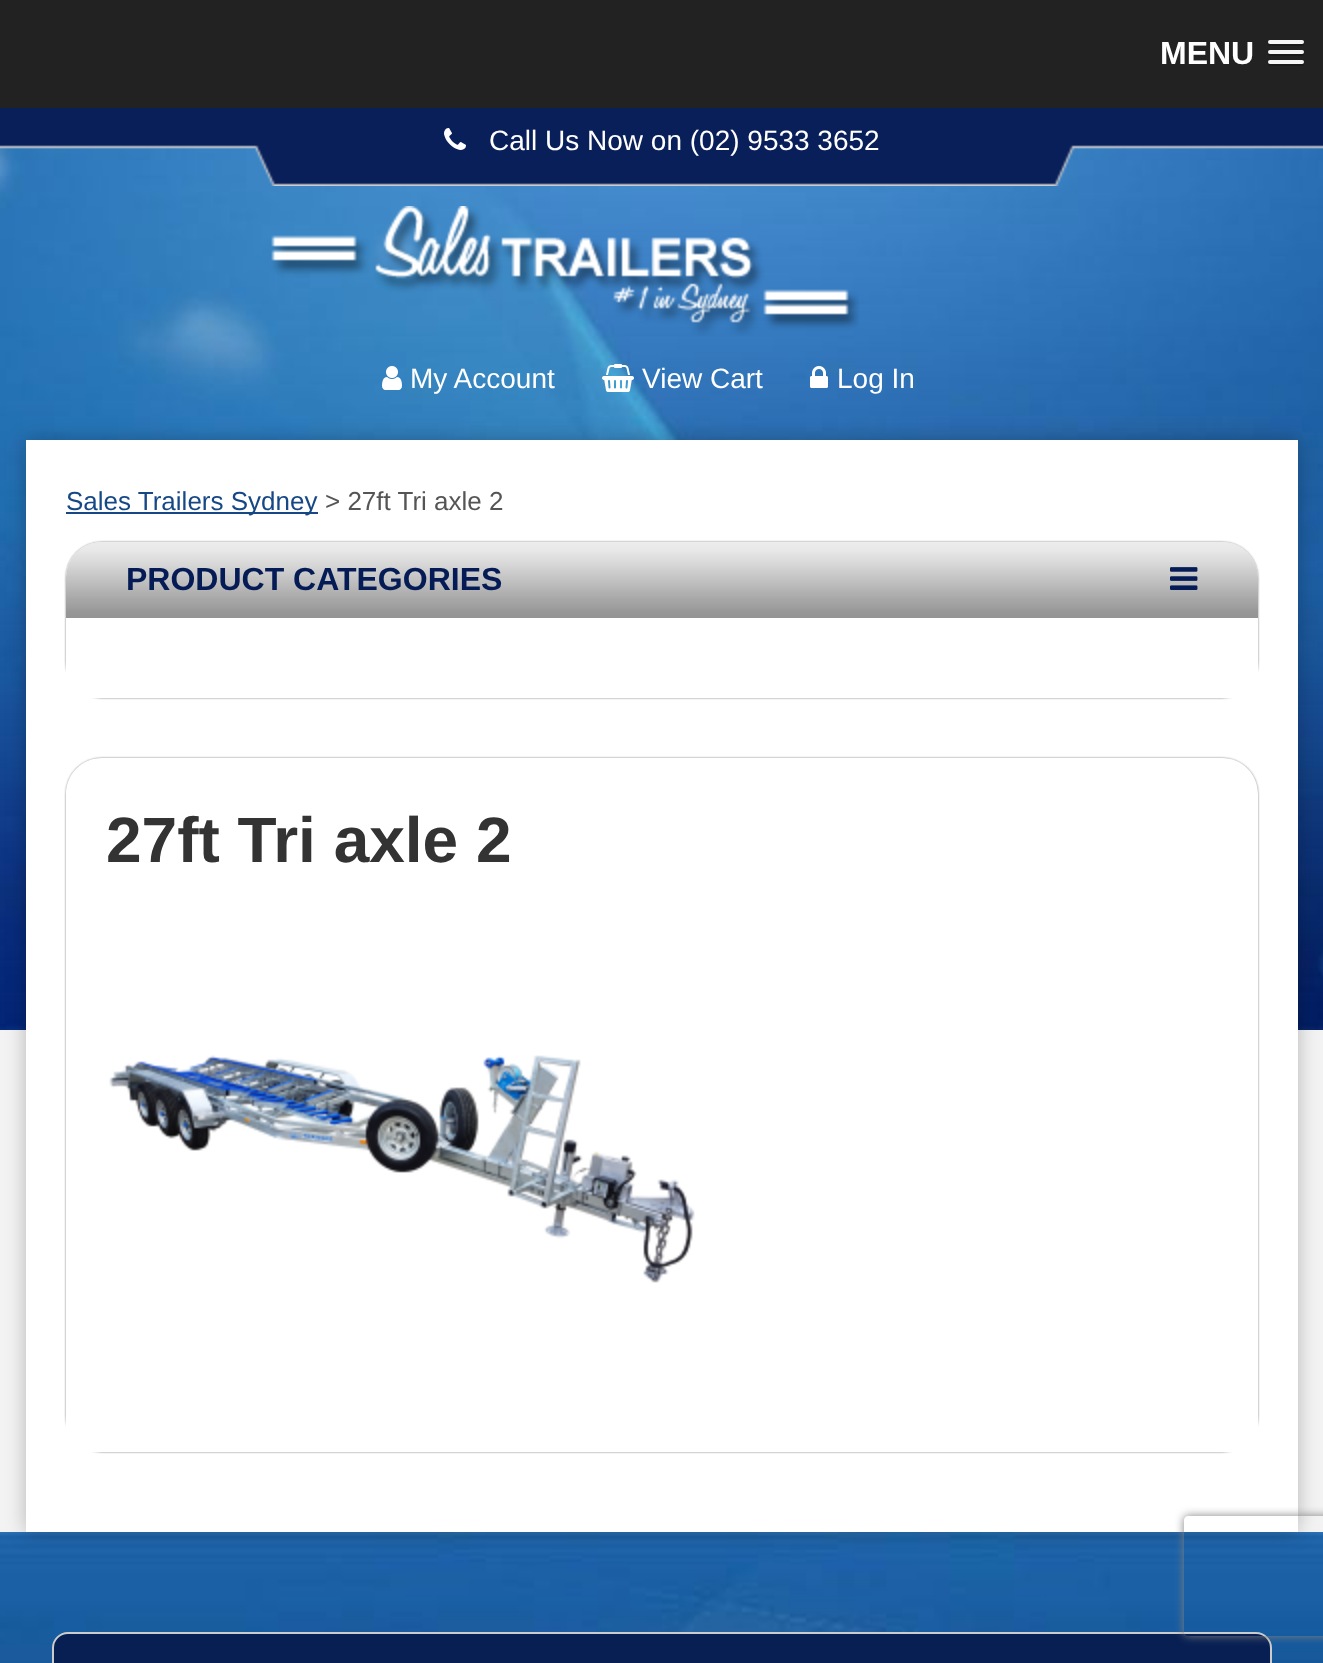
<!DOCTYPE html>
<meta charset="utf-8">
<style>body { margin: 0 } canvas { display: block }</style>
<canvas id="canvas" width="1323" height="1663"></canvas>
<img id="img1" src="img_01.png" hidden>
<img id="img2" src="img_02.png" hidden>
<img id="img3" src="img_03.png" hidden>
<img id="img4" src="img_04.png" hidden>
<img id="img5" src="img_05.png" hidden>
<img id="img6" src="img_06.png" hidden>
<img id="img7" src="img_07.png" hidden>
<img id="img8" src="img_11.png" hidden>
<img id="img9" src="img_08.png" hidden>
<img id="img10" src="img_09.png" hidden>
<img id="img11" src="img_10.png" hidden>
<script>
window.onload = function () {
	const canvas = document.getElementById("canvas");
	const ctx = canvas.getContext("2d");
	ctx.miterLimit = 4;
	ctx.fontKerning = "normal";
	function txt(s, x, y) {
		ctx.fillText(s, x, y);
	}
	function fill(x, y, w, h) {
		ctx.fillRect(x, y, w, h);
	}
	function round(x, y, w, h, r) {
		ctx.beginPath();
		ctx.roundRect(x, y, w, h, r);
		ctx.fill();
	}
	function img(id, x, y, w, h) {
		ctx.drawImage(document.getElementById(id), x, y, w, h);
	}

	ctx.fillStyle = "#F3F3F3";
	fill(0, 0, 1323, 1663);
	img("img1", 0, 147, 1323, 883);
	ctx.fillStyle = "#222222";
	fill(0, 0, 1323, 108);
	ctx.fillStyle = "#1A1A1A";
	ctx.beginPath();
	ctx.moveTo(1268.5, 43);
	ctx.bezierCurveTo(1266, 47, 1275, 46, 1275.5, 46);
	ctx.lineTo(1296.5, 46);
	ctx.bezierCurveTo(1297, 46, 1306, 47, 1303.5, 43);
	ctx.bezierCurveTo(1303.5, 43.5, 1302.5, 44, 1302, 44);
	ctx.lineTo(1270, 44);
	ctx.bezierCurveTo(1269.5, 44, 1268.5, 43.5, 1268.5, 43);
	ctx.closePath();
	ctx.fill();
	ctx.fillStyle = "#F5F5F5";
	round(1268, 40, 36, 4, 2);
	ctx.fillStyle = "#1A1A1A";
	ctx.beginPath();
	ctx.moveTo(1268.5, 53);
	ctx.bezierCurveTo(1266, 57, 1275, 56, 1275.5, 56);
	ctx.lineTo(1296.5, 56);
	ctx.bezierCurveTo(1297, 56, 1306, 57, 1303.5, 53);
	ctx.bezierCurveTo(1303.5, 53.5, 1302.5, 54, 1302, 54);
	ctx.lineTo(1270, 54);
	ctx.bezierCurveTo(1269.5, 54, 1268.5, 53.5, 1268.5, 53);
	ctx.closePath();
	ctx.fill();
	ctx.fillStyle = "#F5F5F5";
	round(1268, 50, 36, 4, 2);
	ctx.fillStyle = "#1A1A1A";
	ctx.beginPath();
	ctx.moveTo(1268.5, 63);
	ctx.bezierCurveTo(1266, 67, 1275, 66, 1275.5, 66);
	ctx.lineTo(1296.5, 66);
	ctx.bezierCurveTo(1297, 66, 1306, 67, 1303.5, 63);
	ctx.bezierCurveTo(1303.5, 63.5, 1302.5, 64, 1302, 64);
	ctx.lineTo(1270, 64);
	ctx.bezierCurveTo(1269.5, 64, 1268.5, 63.5, 1268.5, 63);
	ctx.closePath();
	ctx.fill();
	ctx.fillStyle = "#F5F5F5";
	round(1268, 60, 36, 4, 2);
	img("img2", 0, 108, 1323, 78);
	img("img3", 444, 128, 22, 22);
	img("img4", 271, 206, 588, 130);
	img("img5", 382, 366, 20, 24);
	img("img6", 602, 364, 32, 28);
	img("img7", 810, 366, 18, 22);
	img("img8", 0, 1532, 1323, 131);
	ctx.fillStyle = "rgba(0, 0, 0, 0.25)";
	ctx.filter = "blur(10px)";
	ctx.beginPath();
	ctx.rect(26, 440, 1272, 1092);
	ctx.fill();
	ctx.filter = "none";
	ctx.fillStyle = "#FFFFFF";
	fill(26, 440, 1272, 1092);
	ctx.fillStyle = "#164886";
	fill(66, 512, 252, 2);
	ctx.save();
	ctx.beginPath();
	ctx.moveTo(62, 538);
	ctx.lineTo(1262, 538);
	ctx.lineTo(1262, 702);
	ctx.lineTo(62, 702);
	ctx.closePath();
	ctx.moveTo(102, 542);
	ctx.lineTo(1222, 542);
	ctx.bezierCurveTo(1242, 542, 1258, 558, 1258, 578);
	ctx.lineTo(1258, 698);
	ctx.lineTo(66, 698);
	ctx.lineTo(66, 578);
	ctx.bezierCurveTo(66, 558, 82, 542, 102, 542);
	ctx.closePath();
	ctx.clip("evenodd");
	ctx.fillStyle = "rgba(0, 0, 0, 0.5)";
	ctx.filter = "blur(1px)";
	ctx.beginPath();
	ctx.roundRect(66, 542, 1192, 156, 36);
	ctx.fill();
	ctx.filter = "none";
	ctx.restore();
	ctx.fillStyle = "#E3E3E3";
	ctx.beginPath();
	ctx.roundRect(66, 542, 1192, 76, [36, 36, 0, 0]);
	ctx.fill();
	img("img9", 66, 542, 1192, 76);
	img("img10", 1170, 567, 28, 23);
	ctx.save();
	ctx.beginPath();
	ctx.moveTo(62, 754);
	ctx.lineTo(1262, 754);
	ctx.lineTo(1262, 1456);
	ctx.lineTo(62, 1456);
	ctx.closePath();
	ctx.moveTo(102, 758);
	ctx.lineTo(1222, 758);
	ctx.bezierCurveTo(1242, 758, 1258, 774, 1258, 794);
	ctx.lineTo(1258, 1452);
	ctx.lineTo(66, 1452);
	ctx.lineTo(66, 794);
	ctx.bezierCurveTo(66, 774, 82, 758, 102, 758);
	ctx.closePath();
	ctx.clip("evenodd");
	ctx.fillStyle = "rgba(0, 0, 0, 0.5)";
	ctx.filter = "blur(1px)";
	ctx.beginPath();
	ctx.roundRect(66, 758, 1192, 694, 36);
	ctx.fill();
	ctx.filter = "none";
	ctx.restore();
	img("img11", 109, 1055, 586, 228);
	ctx.fillStyle = "#071F53";
	ctx.beginPath();
	ctx.roundRect(53, 1633, 1218, 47, 15);
	ctx.fill();
	ctx.strokeStyle = "#CCCCCC";
	ctx.lineWidth = 2;
	ctx.stroke();
	ctx.save();
	ctx.beginPath();
	ctx.moveTo(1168, 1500);
	ctx.lineTo(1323, 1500);
	ctx.lineTo(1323, 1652);
	ctx.lineTo(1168, 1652);
	ctx.closePath();
	ctx.moveTo(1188, 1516);
	ctx.lineTo(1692, 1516);
	ctx.bezierCurveTo(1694, 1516, 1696, 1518, 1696, 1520);
	ctx.lineTo(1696, 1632);
	ctx.bezierCurveTo(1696, 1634, 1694, 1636, 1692, 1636);
	ctx.lineTo(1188, 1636);
	ctx.bezierCurveTo(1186, 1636, 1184, 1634, 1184, 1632);
	ctx.lineTo(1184, 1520);
	ctx.bezierCurveTo(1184, 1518, 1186, 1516, 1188, 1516);
	ctx.closePath();
	ctx.clip("evenodd");
	ctx.fillStyle = "#808080";
	ctx.filter = "blur(5px)";
	ctx.beginPath();
	ctx.roundRect(1184, 1516, 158, 120, 4);
	ctx.fill();
	ctx.filter = "none";
	ctx.restore();
	ctx.font = "bold 32px Liberation Sans";
	ctx.fillStyle = "#FFFFFF";
	txt("MENU", 1160, 64);
	ctx.font = "28px Liberation Sans";
	txt("Call Us Now on (02) 9533 3652", 489, 150);
	txt("My Account", 410, 388);
	txt("View Cart", 642, 388);
	txt("Log In", 837, 388);
	ctx.font = "26px Liberation Sans";
	ctx.fillStyle = "#164886";
	txt("Sales Trailers Sydney", 66, 510);
	ctx.fillStyle = "#555555";
	txt("> 27ft Tri axle 2", 325, 510);
	ctx.font = "bold 32px Liberation Sans";
	ctx.fillStyle = "#051B55";
	txt("PRODUCT CATEGORIES", 126, 590);
	ctx.font = "bold 64px Liberation Sans";
	ctx.fillStyle = "#333333";
	txt("27ft Tri axle 2", 106, 862);
};
</script>
